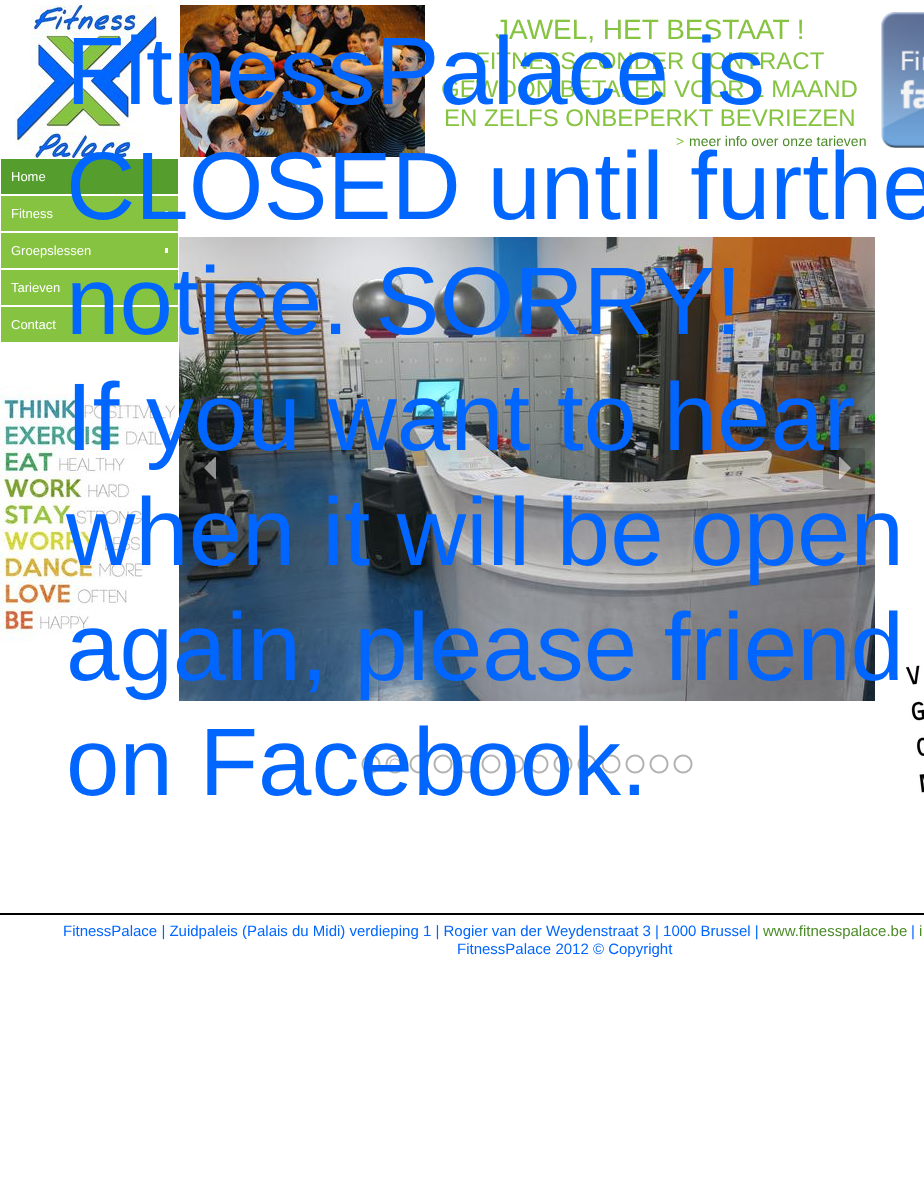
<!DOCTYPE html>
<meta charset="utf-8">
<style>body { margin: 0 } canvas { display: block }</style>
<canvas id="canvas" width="924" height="1202"></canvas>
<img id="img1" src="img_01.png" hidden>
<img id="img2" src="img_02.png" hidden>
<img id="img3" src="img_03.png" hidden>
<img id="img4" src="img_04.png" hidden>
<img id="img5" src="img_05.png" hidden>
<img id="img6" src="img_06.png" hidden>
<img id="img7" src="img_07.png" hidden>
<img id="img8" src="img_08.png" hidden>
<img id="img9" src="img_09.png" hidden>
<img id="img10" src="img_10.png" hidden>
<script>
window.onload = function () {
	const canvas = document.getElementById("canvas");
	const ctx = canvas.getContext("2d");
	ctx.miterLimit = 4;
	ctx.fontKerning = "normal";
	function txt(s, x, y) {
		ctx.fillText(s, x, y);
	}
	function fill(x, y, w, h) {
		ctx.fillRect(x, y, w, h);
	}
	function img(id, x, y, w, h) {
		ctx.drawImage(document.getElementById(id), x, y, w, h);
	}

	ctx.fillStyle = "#FFFFFF";
	fill(0, 0, 924, 1202);
	img("img1", 15, 5, 144, 153);
	img("img2", 180, 5, 245, 152);
	img("img3", 881, 12, 43, 136);
	ctx.fillStyle = "#559E2D";
	fill(1, 159, 177, 35);
	ctx.fillStyle = "#86C341";
	fill(1, 196, 177, 35);
	ctx.fillStyle = "#FFFFFF";
	fill(165, 211, 3, 5);
	ctx.fillStyle = "#86C341";
	fill(1, 233, 177, 35);
	ctx.fillStyle = "#FFFFFF";
	fill(165, 248, 3, 5);
	ctx.fillStyle = "#86C341";
	fill(1, 270, 177, 35);
	fill(1, 307, 177, 35);
	img("img4", 0, 386, 176, 256);
	img("img5", 179, 237, 696, 464);
	img("img6", 189, 448, 42, 42);
	img("img7", 823, 448, 42, 42);
	img("img8", 361, 754, 20, 20);
	img("img9", 385, 754, 20, 20);
	img("img8", 409, 754, 20, 20);
	img("img8", 433, 754, 20, 20);
	img("img8", 457, 754, 20, 20);
	img("img8", 481, 754, 20, 20);
	img("img8", 505, 754, 20, 20);
	img("img8", 529, 754, 20, 20);
	img("img8", 553, 754, 20, 20);
	img("img8", 577, 754, 20, 20);
	img("img8", 601, 754, 20, 20);
	img("img8", 625, 754, 20, 20);
	img("img8", 649, 754, 20, 20);
	img("img8", 673, 754, 20, 20);
	img("img10", 906, 665, 18, 128);
	ctx.fillStyle = "#000000";
	fill(0, 913, 924, 2);
	ctx.font = "28px Liberation Sans";
	ctx.fillStyle = "#86C341";
	txt("JAWEL, HET BESTAAT !", 495, 39);
	ctx.font = "24px Liberation Sans";
	txt("FITNESS ZONDER CONTRACT", 475, 69);
	txt("GEWOON BETALEN VOOR 1 MAAND", 441, 97);
	txt("EN ZELFS ONBEPERKT BEVRIEZEN", 444, 126);
	ctx.font = "14px Liberation Sans";
	txt(">", 676, 146);
	ctx.fillStyle = "#4B8B28";
	txt("meer info over onze tarieven", 689, 146);
	ctx.font = "13px Liberation Sans";
	ctx.fillStyle = "#FFFFFF";
	txt("Home", 11, 181);
	txt("Fitness", 11, 218);
	txt("Groepslessen", 11, 255);
	txt("Tarieven", 11, 292);
	txt("Contact", 11, 329);
	ctx.font = "96px Liberation Sans";
	ctx.fillStyle = "#0166FF";
	txt("FitnessPalace is", 66, 104);
	txt("CLOSED until furthe", 66, 219);
	txt("notice. SORRY!", 66, 334);
	txt("If you want to hear", 66, 450);
	txt("when it will be open", 66, 565);
	txt("again, please friend", 66, 680);
	txt("on Facebook.", 66, 795);
	ctx.font = "15px Liberation Sans";
	txt("FitnessPalace | Zuidpaleis (Palais du Midi) verdieping 1 | Rogier van der Weydenstraat 3 | 1000 Brussel |", 63, 936);
	ctx.fillStyle = "#4B8B28";
	txt("www.fitnesspalace.be", 763, 936);
	ctx.fillStyle = "#0166FF";
	txt("|", 911, 936);
	ctx.fillStyle = "#4B8B28";
	txt("i", 919, 936);
	ctx.fillStyle = "#0166FF";
	txt("FitnessPalace 2012 © Copyright", 457, 954);
};
</script>
